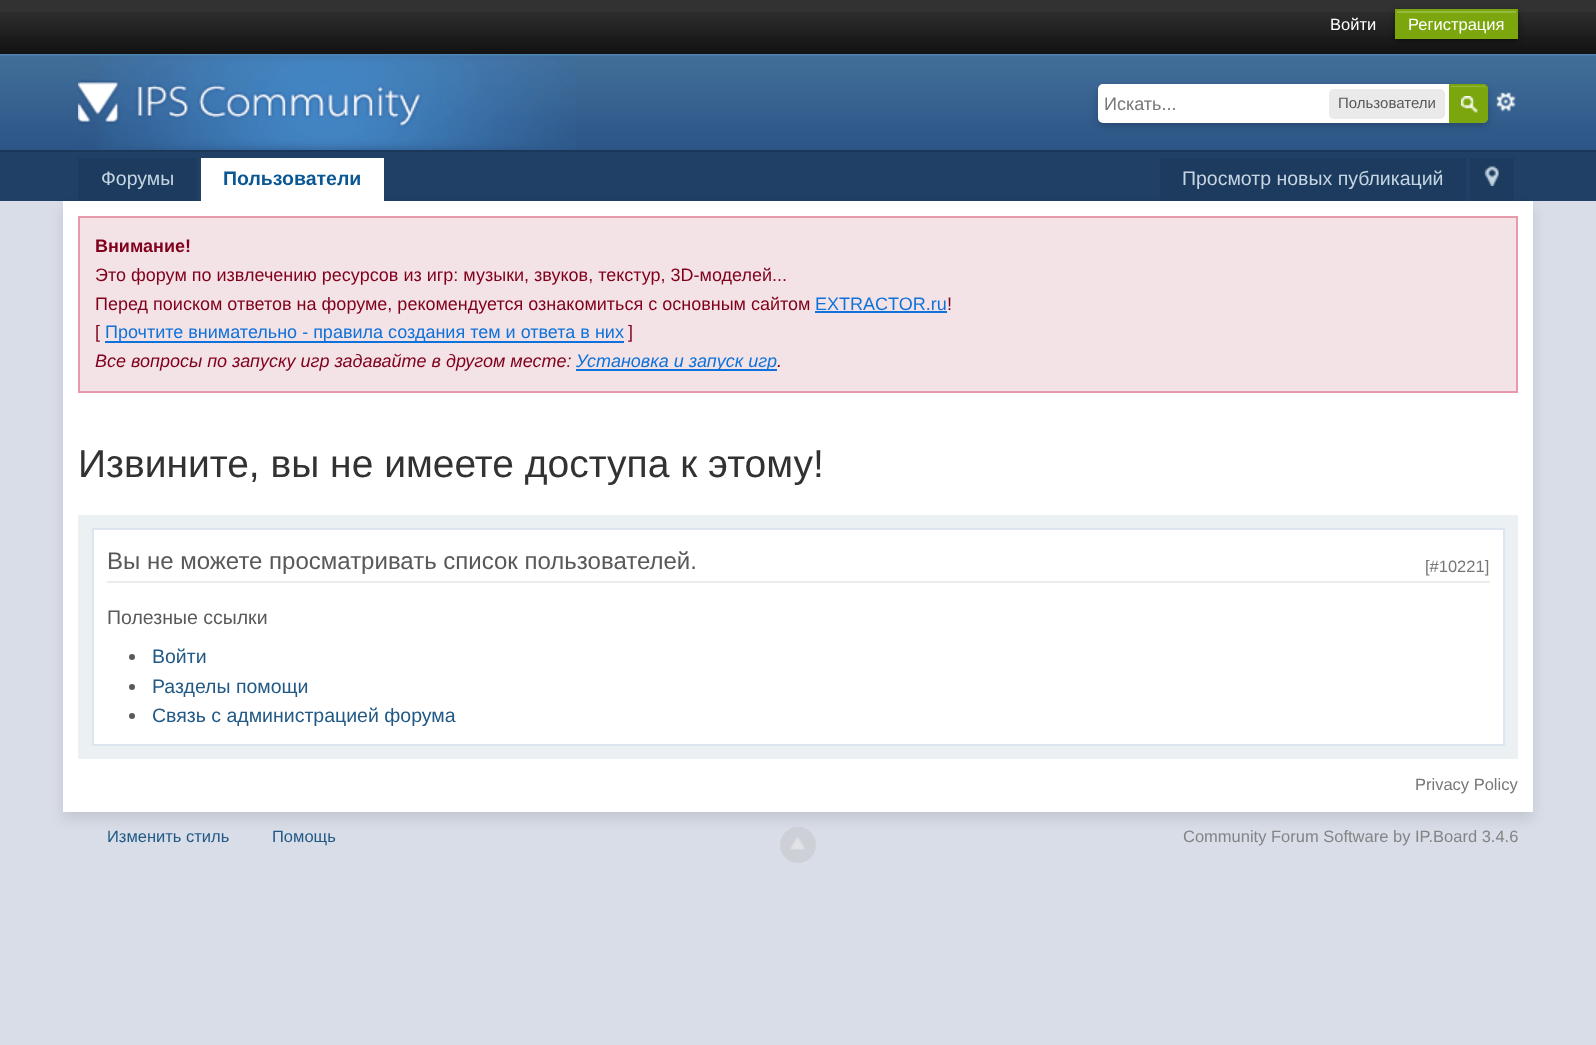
<!DOCTYPE html>
<meta charset="utf-8">
<style>body { margin: 0 } canvas { display: block }</style>
<canvas id="canvas" width="1596" height="1045"></canvas>
<img id="img1" src="img_01.png" hidden>
<img id="img2" src="img_02.png" hidden>
<img id="img3" src="img_03.png" hidden>
<img id="img4" src="img_05.png" hidden>
<img id="img5" src="img_04.png" hidden>
<img id="img6" src="img_06.png" hidden>
<img id="img7" src="img_07.png" hidden>
<script>
window.onload = function () {
	const canvas = document.getElementById("canvas");
	const ctx = canvas.getContext("2d");
	ctx.miterLimit = 4;
	ctx.fontKerning = "normal";
	function txt(s, x, y) {
		ctx.fillText(s, x, y);
	}
	function fill(x, y, w, h) {
		ctx.fillRect(x, y, w, h);
	}
	function round(x, y, w, h, r) {
		ctx.beginPath();
		ctx.roundRect(x, y, w, h, r);
		ctx.fill();
	}
	function img(id, x, y, w, h) {
		ctx.drawImage(document.getElementById(id), x, y, w, h);
	}

	ctx.fillStyle = "#D8DDE8";
	fill(0, 0, 1596, 1045);
	ctx.fillStyle = "#323232";
	fill(0, 0, 1596, 12);
	img("img1", 0, 12, 1596, 42);
	ctx.fillStyle = "rgba(0, 0, 0, 0.4)";
	ctx.filter = "blur(3px)";
	ctx.beginPath();
	ctx.rect(1395, 11, 123, 30);
	ctx.fill();
	ctx.filter = "none";
	ctx.fillStyle = "#7BA60D";
	fill(1397, 13, 119, 24);
	ctx.fillStyle = "#95B83D";
	fill(1397, 11, 120, 2);
	ctx.strokeStyle = "#7BA60D";
	ctx.lineWidth = 2;
	ctx.strokeRect(1396, 10, 121, 28);
	img("img2", 0, 54, 1596, 96);
	ctx.fillStyle = "#1B3759";
	fill(0, 150, 1596, 2);
	img("img3", 78, 54, 498, 96);
	img("img4", 1496, 92, 20, 20);
	ctx.fillStyle = "rgba(0, 0, 0, 0.2)";
	ctx.filter = "blur(3px)";
	ctx.beginPath();
	ctx.roundRect(1098, 87, 390, 39, 6);
	ctx.fill();
	ctx.filter = "none";
	ctx.fillStyle = "#FFFFFF";
	ctx.beginPath();
	ctx.roundRect(1098, 84, 390, 39, [5, 6, 6, 5]);
	ctx.fill();
	ctx.fillStyle = "#EAEAEA";
	round(1329, 89, 116, 30, 5);
	ctx.fillStyle = "#7BA60D";
	ctx.beginPath();
	ctx.roundRect(1449, 84, 39, 39, [0, 5, 5, 0]);
	ctx.fill();
	img("img5", 1461, 96, 17, 17);
	ctx.fillStyle = "#95B83D";
	ctx.beginPath();
	ctx.moveTo(1451, 86);
	ctx.lineTo(1451, 87);
	ctx.lineTo(1478.5, 87);
	ctx.bezierCurveTo(1481.5, 87, 1486, 85.5, 1486, 90);
	ctx.lineTo(1486, 121.5);
	ctx.bezierCurveTo(1486.5, 121, 1487, 120, 1487, 119);
	ctx.lineTo(1487, 89);
	ctx.bezierCurveTo(1487, 87.5, 1485.5, 86, 1484, 86);
	ctx.closePath();
	ctx.fill();
	ctx.beginPath();
	ctx.roundRect(1450, 85, 37, 37, [0, 4, 4, 0]);
	ctx.stroke();
	ctx.fillStyle = "#204066";
	fill(0, 152, 1596, 49);
	ctx.fillStyle = "rgba(0, 0, 0, 0.1)";
	ctx.filter = "blur(7px)";
	ctx.beginPath();
	ctx.rect(63, 209, 1470, 610);
	ctx.fill();
	ctx.filter = "none";
	ctx.fillStyle = "#1C3B5F";
	fill(78, 158, 119, 43);
	ctx.fillStyle = "#FFFFFF";
	fill(201, 158, 183, 43);
	ctx.fillStyle = "#1C3B5F";
	fill(1160, 158, 306, 43);
	fill(1470, 158, 44, 43);
	img("img6", 1484, 166, 15, 20);
	ctx.fillStyle = "#FFFFFF";
	fill(63, 201, 1470, 611);
	ctx.fillStyle = "#F3E3E6";
	ctx.beginPath();
	ctx.rect(79, 217, 1438, 175);
	ctx.fill();
	ctx.strokeStyle = "#E599AA";
	ctx.stroke();
	ctx.fillStyle = "#0F72DA";
	fill(815, 311, 132, 2);
	fill(105, 341, 519, 2);
	fill(576, 369, 201, 2);
	ctx.fillStyle = "#EBF0F3";
	fill(78, 515, 1440, 244);
	ctx.fillStyle = "#FFFFFF";
	ctx.beginPath();
	ctx.rect(93, 529, 1411, 216);
	ctx.fill();
	ctx.strokeStyle = "#DBE4EF";
	ctx.stroke();
	ctx.fillStyle = "#ECECEC";
	fill(107, 581, 1383, 2);
	ctx.fillStyle = "#5A5A5A";
	ctx.beginPath();
	ctx.arc(132, 657, 3, 0, Math.PI * 2);
	ctx.fill();
	ctx.beginPath();
	ctx.arc(132, 687, 3, 0, Math.PI * 2);
	ctx.fill();
	ctx.beginPath();
	ctx.arc(132, 716, 3, 0, Math.PI * 2);
	ctx.fill();
	ctx.fillStyle = "rgba(189, 189, 189, 0.4)";
	ctx.beginPath();
	ctx.arc(798, 845, 18, 0, Math.PI * 2);
	ctx.fill();
	img("img7", 790, 837, 15, 13);
	ctx.font = "16.5px Liberation Sans";
	ctx.fillStyle = "#FFFFFF";
	txt("Войти", 1330, 30);
	txt("Регистрация", 1408, 30);
	ctx.font = "18px Liberation Sans";
	ctx.fillStyle = "#777777";
	txt("Искать...", 1104, 110);
	ctx.font = "15px Liberation Sans";
	ctx.fillStyle = "#595959";
	txt("Пользователи", 1338, 108);
	ctx.font = "19.5px Liberation Sans";
	ctx.fillStyle = "#C5D5E2";
	txt("Форумы", 101, 185);
	ctx.font = "bold 19.5px Liberation Sans";
	ctx.fillStyle = "#0B5794";
	txt("Пользователи", 223, 185);
	ctx.font = "19.5px Liberation Sans";
	ctx.fillStyle = "#C5D5E2";
	txt("Просмотр новых публикаций", 1182, 185);
	ctx.font = "bold 18px Liberation Sans";
	ctx.fillStyle = "#80001C";
	txt("Внимание!", 95, 252);
	ctx.font = "18px Liberation Sans";
	txt("Это форум по извлечению ресурсов из игр: музыки, звуков, текстур, 3D-моделей...", 95, 281);
	txt("Перед поиском ответов на форуме, рекомендуется ознакомиться с основным сайтом", 95, 310);
	ctx.fillStyle = "#0F72DA";
	txt("EXTRACTOR.ru", 815, 310);
	ctx.fillStyle = "#80001C";
	txt("!", 947, 310);
	txt("[", 95, 338);
	ctx.fillStyle = "#0F72DA";
	txt("Прочтите внимательно - правила создания тем и ответа в них", 105, 338);
	ctx.fillStyle = "#80001C";
	txt("]", 628, 338);
	ctx.font = "italic 18px Liberation Sans";
	txt("Все вопросы по запуску игр задавайте в другом месте:", 95, 367);
	ctx.fillStyle = "#0F72DA";
	txt("Установка и запуск игр", 576, 367);
	ctx.fillStyle = "#80001C";
	txt(".", 777, 367);
	ctx.font = "39px Liberation Sans";
	ctx.fillStyle = "#323232";
	txt("Извините, вы не имеете доступа к этому!", 78, 477);
	ctx.font = "24px Liberation Sans";
	ctx.fillStyle = "#595959";
	txt("Вы не можете просматривать список пользователей.", 107, 569);
	ctx.font = "16.5px Liberation Sans";
	ctx.fillStyle = "#777777";
	txt("[#10221]", 1425, 572);
	ctx.font = "19.5px Liberation Sans";
	ctx.fillStyle = "#595959";
	txt("Полезные ссылки", 107, 624);
	ctx.fillStyle = "#225985";
	txt("Войти", 152, 663);
	txt("Разделы помощи", 152, 693);
	txt("Связь с администрацией форума", 152, 722);
	ctx.font = "16.5px Liberation Sans";
	ctx.fillStyle = "#777777";
	txt("Privacy Policy", 1415, 790);
	ctx.fillStyle = "#225985";
	txt("Изменить стиль", 107, 842);
	txt("Помощь", 272, 842);
	ctx.fillStyle = "#848484";
	txt("Community Forum Software by IP.Board 3.4.6", 1183, 842);
};
</script>
